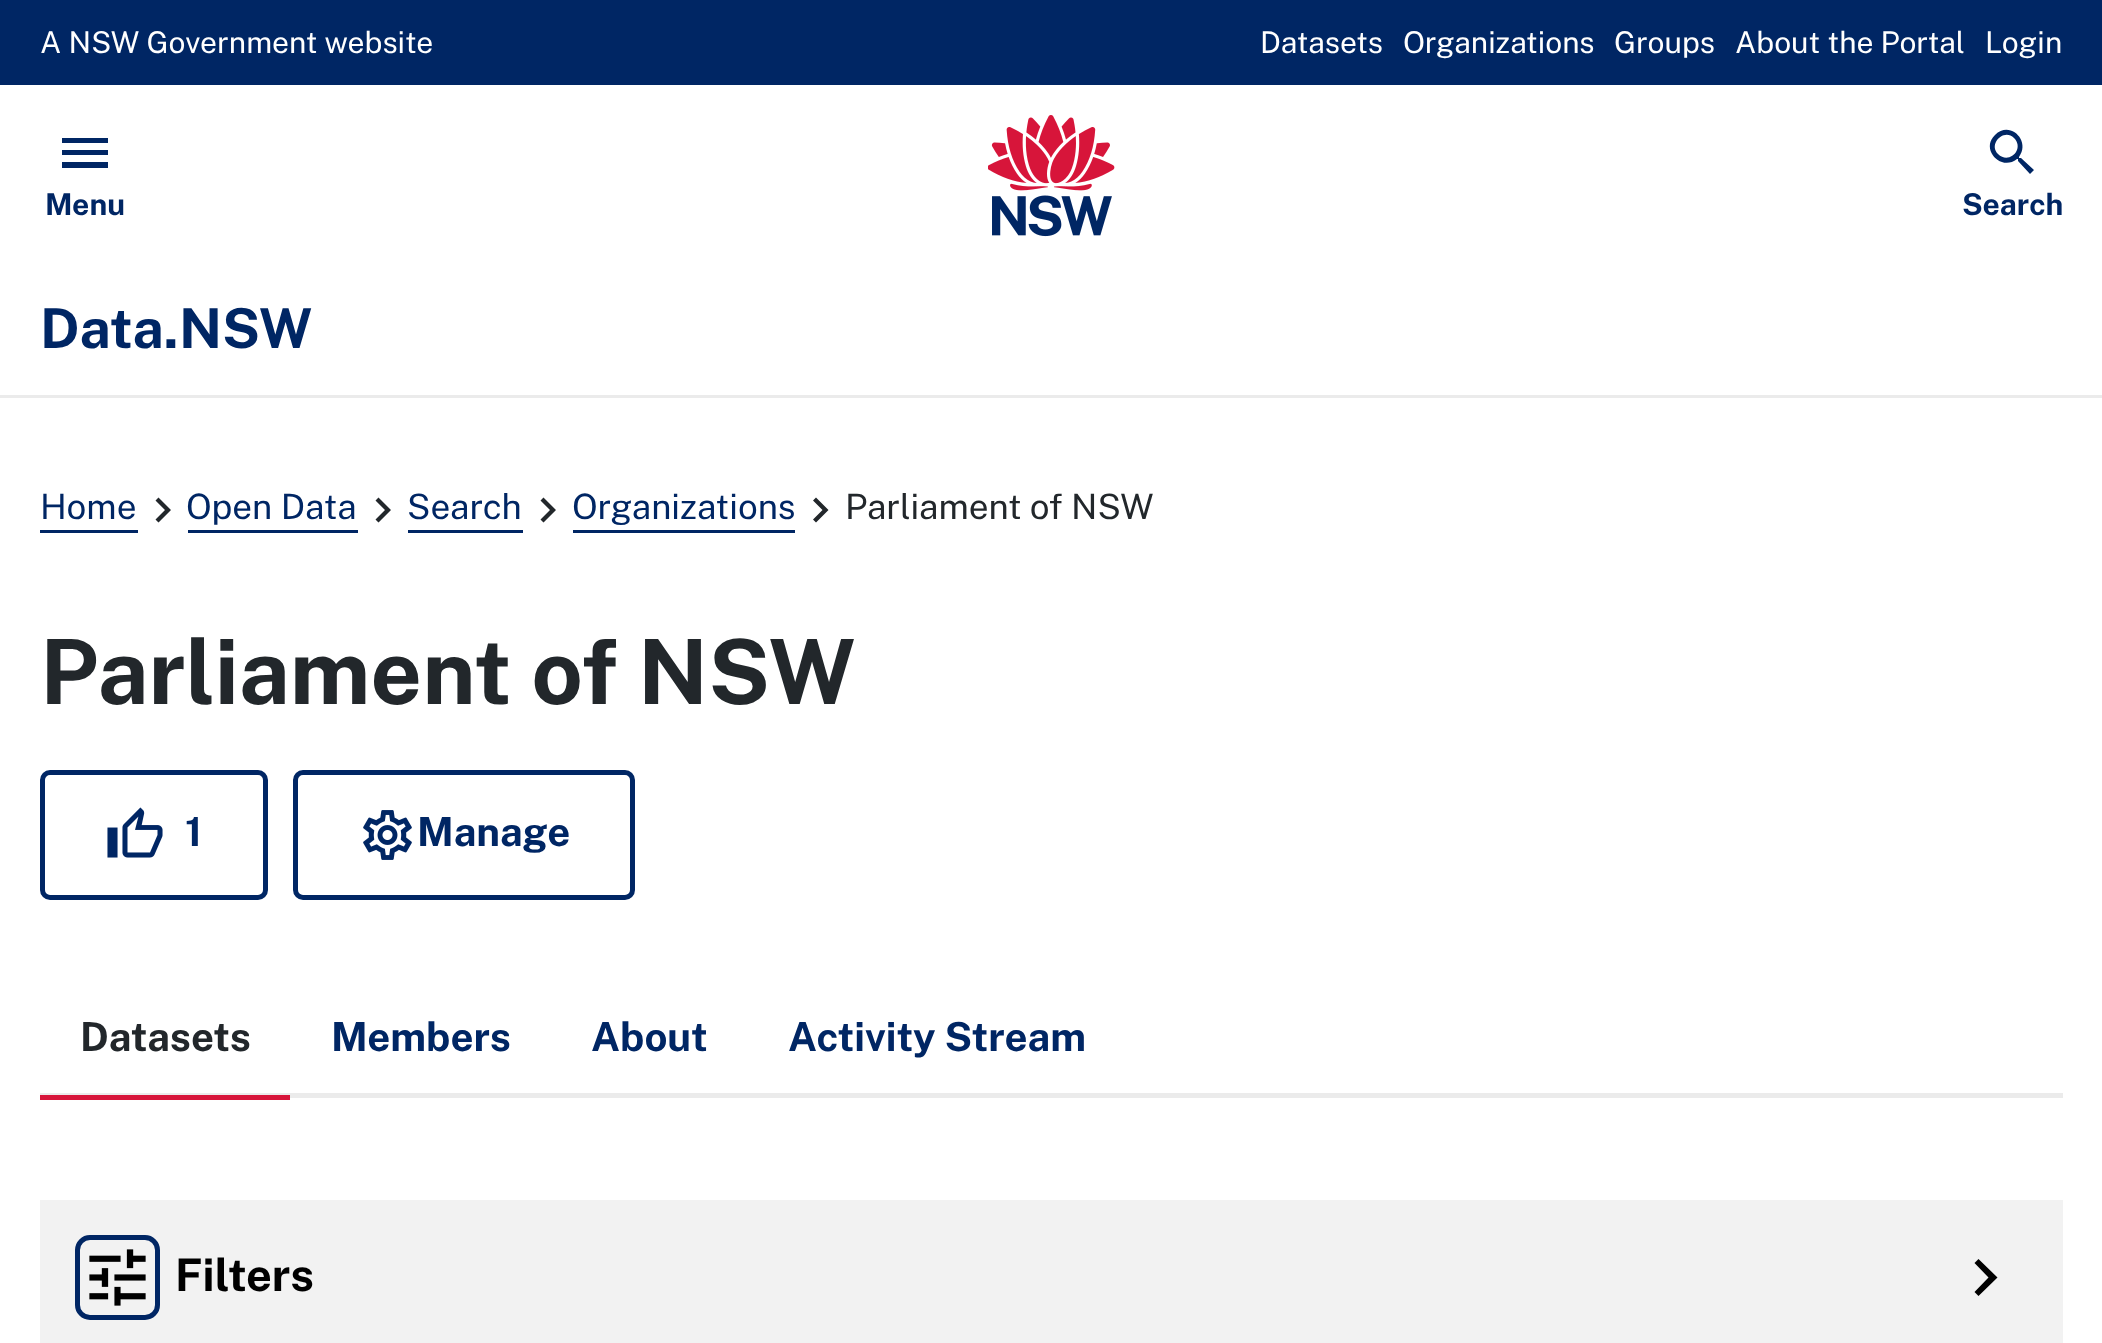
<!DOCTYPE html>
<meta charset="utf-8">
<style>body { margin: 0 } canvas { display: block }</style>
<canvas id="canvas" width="2102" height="1343"></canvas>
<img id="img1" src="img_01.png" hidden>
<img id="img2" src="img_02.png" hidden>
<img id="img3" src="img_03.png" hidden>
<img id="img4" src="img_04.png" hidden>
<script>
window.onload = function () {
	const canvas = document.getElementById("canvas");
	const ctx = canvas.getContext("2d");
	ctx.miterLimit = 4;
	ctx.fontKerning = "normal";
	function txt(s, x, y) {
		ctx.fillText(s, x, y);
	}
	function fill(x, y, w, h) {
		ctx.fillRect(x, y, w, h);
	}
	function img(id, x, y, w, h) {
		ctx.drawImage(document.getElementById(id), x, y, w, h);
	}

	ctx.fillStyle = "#FFFFFF";
	fill(0, 0, 2102, 1343);
	ctx.fillStyle = "#002664";
	fill(0, 0, 2102, 85);
	ctx.fillStyle = "#EBEBEB";
	fill(0, 395, 2102, 3);
	ctx.fillStyle = "#002664";
	ctx.beginPath();
	ctx.moveTo(62, 138);
	ctx.lineTo(108, 138);
	ctx.lineTo(108, 143);
	ctx.lineTo(62, 143);
	ctx.closePath();
	ctx.moveTo(62, 155);
	ctx.lineTo(62, 150);
	ctx.lineTo(108, 150);
	ctx.lineTo(108, 155);
	ctx.closePath();
	ctx.moveTo(62, 168);
	ctx.lineTo(62, 162);
	ctx.lineTo(108, 162);
	ctx.lineTo(108, 168);
	ctx.closePath();
	ctx.fill();
	ctx.beginPath();
	ctx.moveTo(1998, 154);
	ctx.bezierCurveTo(2009, 165, 2025, 149, 2014, 138);
	ctx.bezierCurveTo(2004, 128, 1988, 144, 1998, 154);
	ctx.closePath();
	ctx.moveTo(2021, 158);
	ctx.lineTo(2034, 170);
	ctx.lineTo(2030, 174);
	ctx.lineTo(2018, 161);
	ctx.lineTo(2018, 159);
	ctx.lineTo(2017, 159);
	ctx.bezierCurveTo(2001, 172, 1980, 149, 1995, 135);
	ctx.bezierCurveTo(2010, 120, 2031, 141, 2019, 157);
	ctx.lineTo(2019, 158);
	ctx.closePath();
	ctx.fill();
	img("img1", 988, 115, 127, 122);
	fill(40, 530, 98, 3);
	ctx.fillStyle = "#22272B";
	ctx.beginPath();
	ctx.moveTo(155.5, 519.5);
	ctx.lineTo(165, 510);
	ctx.lineTo(155.5, 500.5);
	ctx.lineTo(158.5, 497.5);
	ctx.lineTo(171, 510);
	ctx.lineTo(158.5, 522.5);
	ctx.closePath();
	ctx.fill();
	ctx.fillStyle = "#002664";
	fill(188, 530, 170, 3);
	ctx.fillStyle = "#22272B";
	ctx.beginPath();
	ctx.moveTo(375.5, 519.5);
	ctx.lineTo(385, 510);
	ctx.lineTo(375.5, 500.5);
	ctx.lineTo(378.5, 497.5);
	ctx.lineTo(391, 510);
	ctx.lineTo(378.5, 522.5);
	ctx.closePath();
	ctx.fill();
	ctx.fillStyle = "#002664";
	fill(408, 530, 115, 3);
	ctx.fillStyle = "#22272B";
	ctx.beginPath();
	ctx.moveTo(540.5, 519.5);
	ctx.lineTo(550, 510);
	ctx.lineTo(540.5, 500.5);
	ctx.lineTo(543.5, 497.5);
	ctx.lineTo(556, 510);
	ctx.lineTo(543.5, 522.5);
	ctx.closePath();
	ctx.fill();
	ctx.fillStyle = "#002664";
	fill(573, 530, 222, 3);
	ctx.fillStyle = "#22272B";
	ctx.beginPath();
	ctx.moveTo(813, 519.5);
	ctx.lineTo(822.5, 510);
	ctx.lineTo(813, 500.5);
	ctx.lineTo(816, 497.5);
	ctx.lineTo(828.5, 510);
	ctx.lineTo(816, 522.5);
	ctx.closePath();
	ctx.fill();
	ctx.beginPath();
	ctx.roundRect(42.5, 772.5, 223, 125, 7.5);
	ctx.strokeStyle = "#002664";
	ctx.lineWidth = 5;
	ctx.stroke();
	img("img2", 107, 807, 56, 51);
	ctx.beginPath();
	ctx.roundRect(295.5, 772.5, 337, 125, 7.5);
	ctx.stroke();
	img("img3", 363, 810, 49, 50);
	ctx.fillStyle = "#EBEBEB";
	fill(40, 1093, 2023, 5);
	ctx.fillStyle = "#D7153A";
	fill(40, 1095, 250, 5);
	ctx.fillStyle = "#F2F2F2";
	fill(40, 1200, 2023, 143);
	img("img4", 89, 1249, 57, 57);
	ctx.beginPath();
	ctx.roundRect(77.5, 1237.5, 80, 80, 12.5);
	ctx.stroke();
	ctx.fillStyle = "#000000";
	ctx.beginPath();
	ctx.moveTo(1974.5, 1292);
	ctx.lineTo(1988.5, 1277.5);
	ctx.lineTo(1974.5, 1263);
	ctx.lineTo(1978.5, 1259);
	ctx.lineTo(1997.5, 1277.5);
	ctx.lineTo(1978.5, 1296);
	ctx.closePath();
	ctx.fill();
	ctx.font = "30px Public Sans";
	ctx.fillStyle = "#FFFFFF";
	txt("A NSW Government website", 40, 53);
	txt("Datasets", 1260, 53);
	txt("Organizations", 1403, 53);
	txt("Groups", 1614, 53);
	txt("About the Portal", 1735, 53);
	txt("Login", 1985, 53);
	ctx.font = "bold 30px Public Sans";
	ctx.fillStyle = "#002664";
	txt("Menu", 45, 215);
	txt("Search", 1962, 215);
	ctx.font = "bold 55px Public Sans";
	txt("Data.NSW", 40, 348);
	ctx.font = "35px Public Sans";
	txt("Home", 40, 519);
	txt("Open Data", 186, 519);
	txt("Search", 407, 519);
	txt("Organizations", 572, 519);
	ctx.fillStyle = "#22272B";
	txt("Parliament of NSW", 845, 519);
	ctx.font = "bold 90px Public Sans";
	txt("Parliament of NSW", 40, 704);
	ctx.font = "bold 40px Public Sans";
	ctx.fillStyle = "#002664";
	txt("1", 185, 846);
	txt("Manage", 417, 846);
	ctx.fillStyle = "#22272B";
	txt("Datasets", 80, 1051);
	ctx.fillStyle = "#002664";
	txt("Members", 331, 1051);
	txt("About", 591, 1051);
	txt("Activity Stream", 788, 1051);
	ctx.font = "bold 45px Public Sans";
	ctx.fillStyle = "#000000";
	txt("Filters", 175, 1291);
};
</script>
